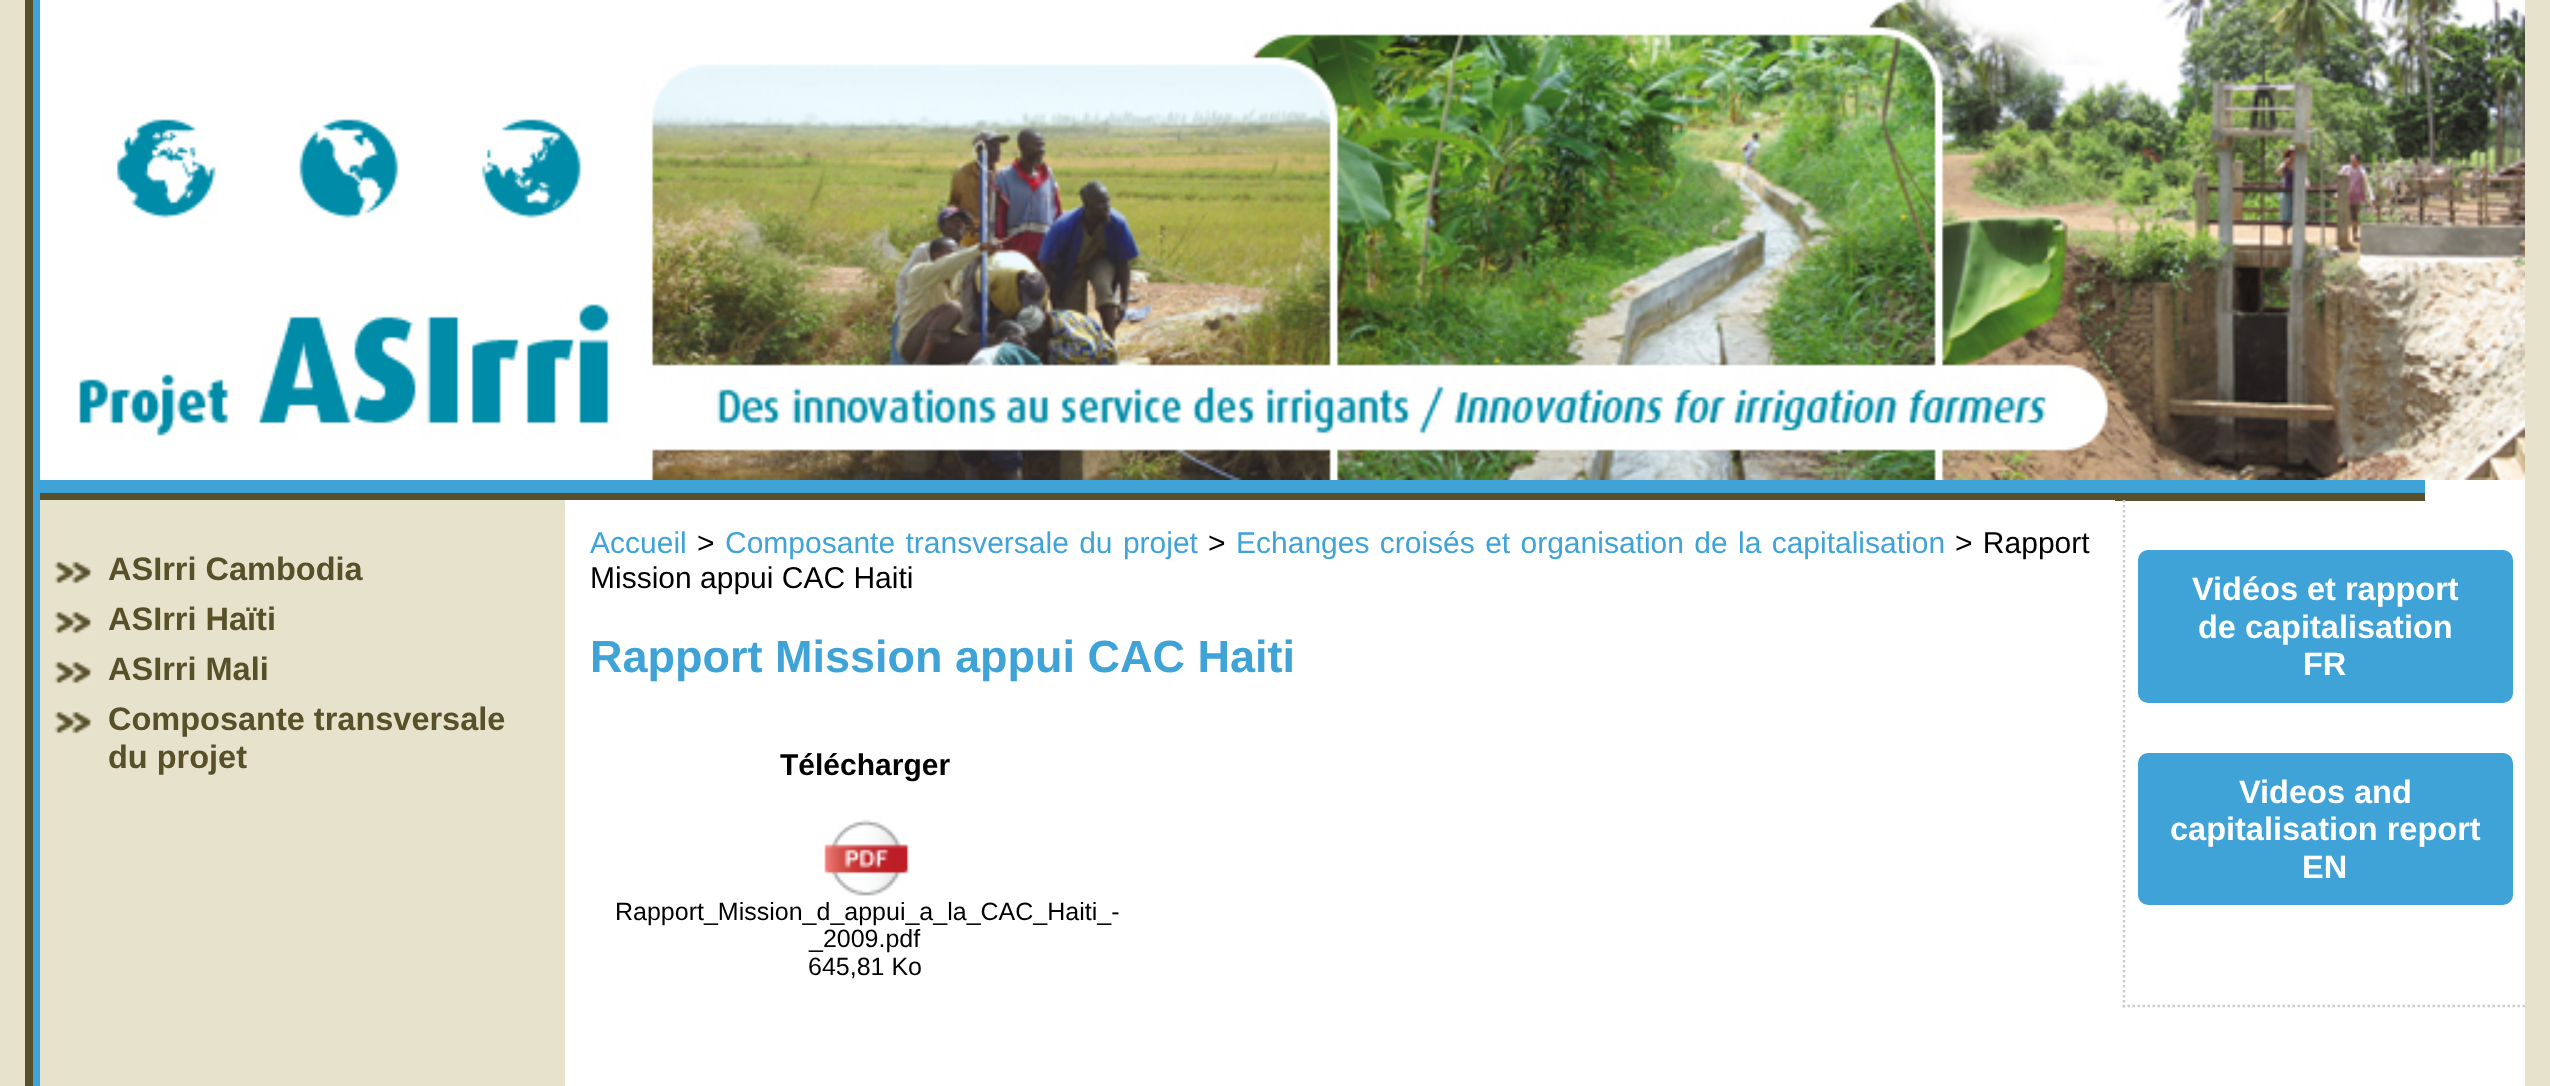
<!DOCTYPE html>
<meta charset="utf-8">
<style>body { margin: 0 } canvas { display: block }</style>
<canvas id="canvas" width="2550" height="1086"></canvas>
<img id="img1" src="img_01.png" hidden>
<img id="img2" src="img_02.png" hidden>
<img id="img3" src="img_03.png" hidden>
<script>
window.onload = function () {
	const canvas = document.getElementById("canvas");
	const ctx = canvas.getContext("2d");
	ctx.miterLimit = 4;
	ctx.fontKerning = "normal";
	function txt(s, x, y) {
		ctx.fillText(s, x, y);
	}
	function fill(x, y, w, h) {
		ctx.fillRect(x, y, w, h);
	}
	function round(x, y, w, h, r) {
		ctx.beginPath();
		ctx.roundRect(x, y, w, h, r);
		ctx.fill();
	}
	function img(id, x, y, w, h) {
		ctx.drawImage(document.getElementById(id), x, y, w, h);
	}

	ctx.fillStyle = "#E7E2CC";
	fill(0, 0, 2550, 1086);
	ctx.fillStyle = "#58502C";
	fill(25, 0, 8, 1086);
	ctx.fillStyle = "#FFFFFF";
	fill(2115, 480, 410, 606);
	ctx.fillStyle = "#3FA3D7";
	fill(33, 0, 7, 1086);
	img("img1", 40, 0, 2485, 480);
	fill(40, 480, 2385, 13);
	ctx.fillStyle = "#58502C";
	fill(40, 493, 2385, 8);
	ctx.fillStyle = "#E7E2CC";
	fill(40, 500, 525, 1);
	img("img2", 54, 561, 39, 23);
	img("img2", 54, 611, 39, 23);
	img("img2", 54, 661, 39, 23);
	img("img2", 54, 711, 39, 23);
	ctx.fillStyle = "#FFFFFF";
	fill(565, 500, 1550, 586);
	img("img3", 824, 819, 85, 77);
	ctx.beginPath();
	ctx.moveTo(2122.5, 1006);
	ctx.lineTo(2525, 1006);
	ctx.strokeStyle = "#CCCCCC";
	ctx.lineWidth = 2.5;
	ctx.setLineDash([2.5, 2.5]);
	ctx.stroke();
	ctx.beginPath();
	ctx.moveTo(2124, 500);
	ctx.lineTo(2124, 1007.5);
	ctx.stroke();
	ctx.fillStyle = "#3FA3D7";
	round(2138, 550, 375, 153, 10);
	round(2138, 753, 375, 152, 10);
	ctx.font = "bold 32.5px Liberation Sans";
	ctx.fillStyle = "#585029";
	txt("ASIrri Cambodia", 108, 580);
	txt("ASIrri Haïti", 108, 630);
	txt("ASIrri Mali", 108, 680);
	txt("Composante transversale", 108, 730);
	txt("du projet", 108, 768);
	ctx.font = "30px Liberation Sans";
	ctx.fillStyle = "#3FA3D7";
	txt("Accueil", 590, 553);
	ctx.fillStyle = "#000000";
	txt(">", 697, 553);
	ctx.wordSpacing = "2px";
	ctx.fillStyle = "#3FA3D7";
	txt("Composante transversale du projet", 725, 553);
	ctx.wordSpacing = "0px";
	ctx.fillStyle = "#000000";
	txt(">", 1208, 553);
	ctx.wordSpacing = "2px";
	ctx.fillStyle = "#3FA3D7";
	txt("Echanges croisés et organisation de la capitalisation", 1236, 553);
	ctx.fillStyle = "#000000";
	txt("> Rapport", 1955, 553);
	ctx.wordSpacing = "0px";
	txt("Mission appui CAC Haiti", 590, 588);
	ctx.font = "bold 45px Liberation Sans";
	ctx.fillStyle = "#3FA3D7";
	txt("Rapport Mission appui CAC Haiti", 590, 672);
	ctx.font = "bold 30px Liberation Sans";
	ctx.fillStyle = "#000000";
	txt("Télécharger", 780, 775);
	ctx.font = "25px Liberation Sans";
	txt("Rapport_Mission_d_appui_a_la_CAC_Haiti_-", 615, 920);
	txt("_2009.pdf", 809, 947);
	txt("645,81 Ko", 808, 975);
	ctx.font = "bold 32.5px Liberation Sans";
	ctx.fillStyle = "#FFFFFF";
	txt("Vidéos et rapport", 2192, 600);
	txt("de capitalisation", 2198, 638);
	txt("FR", 2303, 675);
	txt("Videos and", 2239, 803);
	txt("capitalisation report", 2170, 840);
	txt("EN", 2302, 878);
};
</script>
